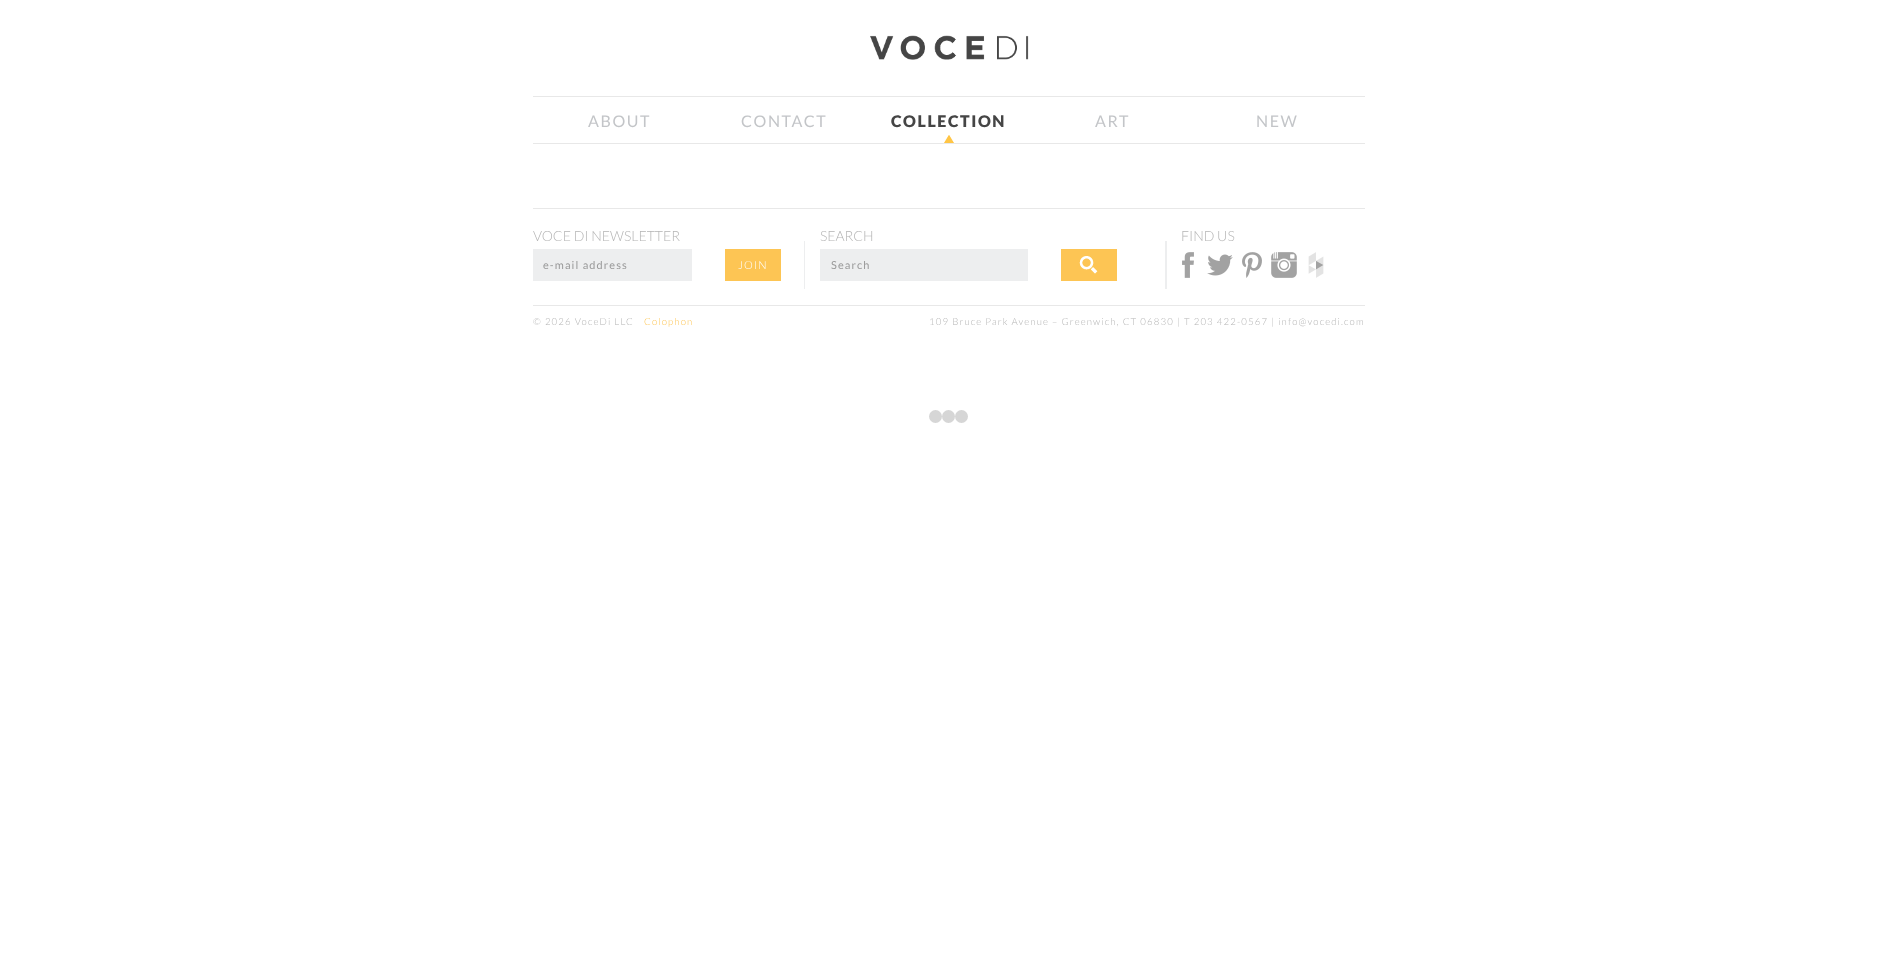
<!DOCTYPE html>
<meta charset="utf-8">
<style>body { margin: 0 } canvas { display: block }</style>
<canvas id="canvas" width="1897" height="971"></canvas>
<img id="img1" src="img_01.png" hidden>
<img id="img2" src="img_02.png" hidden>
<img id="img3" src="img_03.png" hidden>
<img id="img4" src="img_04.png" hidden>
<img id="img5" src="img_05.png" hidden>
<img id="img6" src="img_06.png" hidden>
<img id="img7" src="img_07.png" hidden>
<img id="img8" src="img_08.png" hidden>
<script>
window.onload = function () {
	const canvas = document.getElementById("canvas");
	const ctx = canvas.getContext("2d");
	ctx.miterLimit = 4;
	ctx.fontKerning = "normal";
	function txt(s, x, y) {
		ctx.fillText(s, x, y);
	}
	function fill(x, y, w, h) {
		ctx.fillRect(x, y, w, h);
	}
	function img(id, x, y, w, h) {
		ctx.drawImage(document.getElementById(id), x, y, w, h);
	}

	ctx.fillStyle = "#FFFFFF";
	fill(0, 0, 1897, 971);
	img("img1", 870, 35, 159, 25);
	img("img2", 944, 135, 10, 8);
	ctx.fillStyle = "#E8E8E8";
	fill(533, 96, 832, 1);
	fill(533, 143, 832, 1);
	fill(533, 208, 832, 1);
	ctx.fillStyle = "#EDEEEF";
	fill(533, 249, 159, 32);
	ctx.fillStyle = "#FDC554";
	fill(725, 249, 56, 32);
	ctx.fillStyle = "#EDEEEF";
	fill(804, 241, 1, 48);
	fill(820, 249, 208, 32);
	ctx.fillStyle = "#FDC554";
	fill(1061, 249, 56, 32);
	img("img3", 1079, 256, 19, 18);
	ctx.fillStyle = "#EDEEEF";
	fill(1165, 241, 2, 48);
	img("img4", 1182, 252, 12, 26);
	img("img5", 1207, 254, 26, 22);
	img("img6", 1242, 252, 20, 26);
	img("img7", 1271, 252, 26, 26);
	img("img8", 1308, 252, 16, 26);
	ctx.fillStyle = "#E8E8E8";
	fill(533, 305, 832, 1);
	ctx.fillStyle = "#D6D6D6";
	ctx.beginPath();
	ctx.arc(935.5, 416.5, 6.5, 0, Math.PI * 2);
	ctx.fill();
	ctx.beginPath();
	ctx.arc(948.5, 416.5, 6.5, 0, Math.PI * 2);
	ctx.fill();
	ctx.beginPath();
	ctx.arc(961.5, 416.5, 6.5, 0, Math.PI * 2);
	ctx.fill();
	ctx.letterSpacing = "1.6px";
	ctx.font = "16px Lato";
	ctx.fillStyle = "#C3C5C8";
	txt("ABOUT", 588, 127);
	txt("CONTACT", 741, 127);
	ctx.font = "900 16px Lato";
	ctx.fillStyle = "#454545";
	txt("COLLECTION", 891, 127);
	ctx.font = "16px Lato";
	ctx.fillStyle = "#C3C5C8";
	txt("ART", 1095, 127);
	txt("NEW", 1256, 127);
	ctx.letterSpacing = "0px";
	ctx.font = "300 14px Lato";
	ctx.fillStyle = "#B4B4B4";
	txt("VOCE DI NEWSLETTER", 533, 241);
	ctx.letterSpacing = "1.1px";
	ctx.font = "11px Lato";
	ctx.fillStyle = "#9A9A9A";
	txt("e-mail address", 543, 269);
	ctx.font = "300 11px Lato";
	ctx.fillStyle = "#FFFFFF";
	txt("JOIN", 738, 269);
	ctx.letterSpacing = "0px";
	ctx.font = "300 14px Lato";
	ctx.fillStyle = "#B4B4B4";
	txt("SEARCH", 820, 241);
	ctx.letterSpacing = "1.1px";
	ctx.font = "11px Lato";
	ctx.fillStyle = "#9A9A9A";
	txt("Search", 831, 269);
	ctx.letterSpacing = "0px";
	ctx.font = "300 14px Lato";
	ctx.fillStyle = "#B4B4B4";
	txt("FIND US", 1181, 241);
	ctx.letterSpacing = "1.15px";
	ctx.font = "300 9.6px Lato";
	txt("© 2026 VoceDi LLC", 533, 325);
	ctx.fillStyle = "#FDC554";
	txt("Colophon", 644, 325);
	ctx.fillStyle = "#B4B4B4";
	txt("109 Bruce Park Avenue – Greenwich, CT 06830 | T 203 422-0567 | info@vocedi.com", 929, 325);
};
</script>
